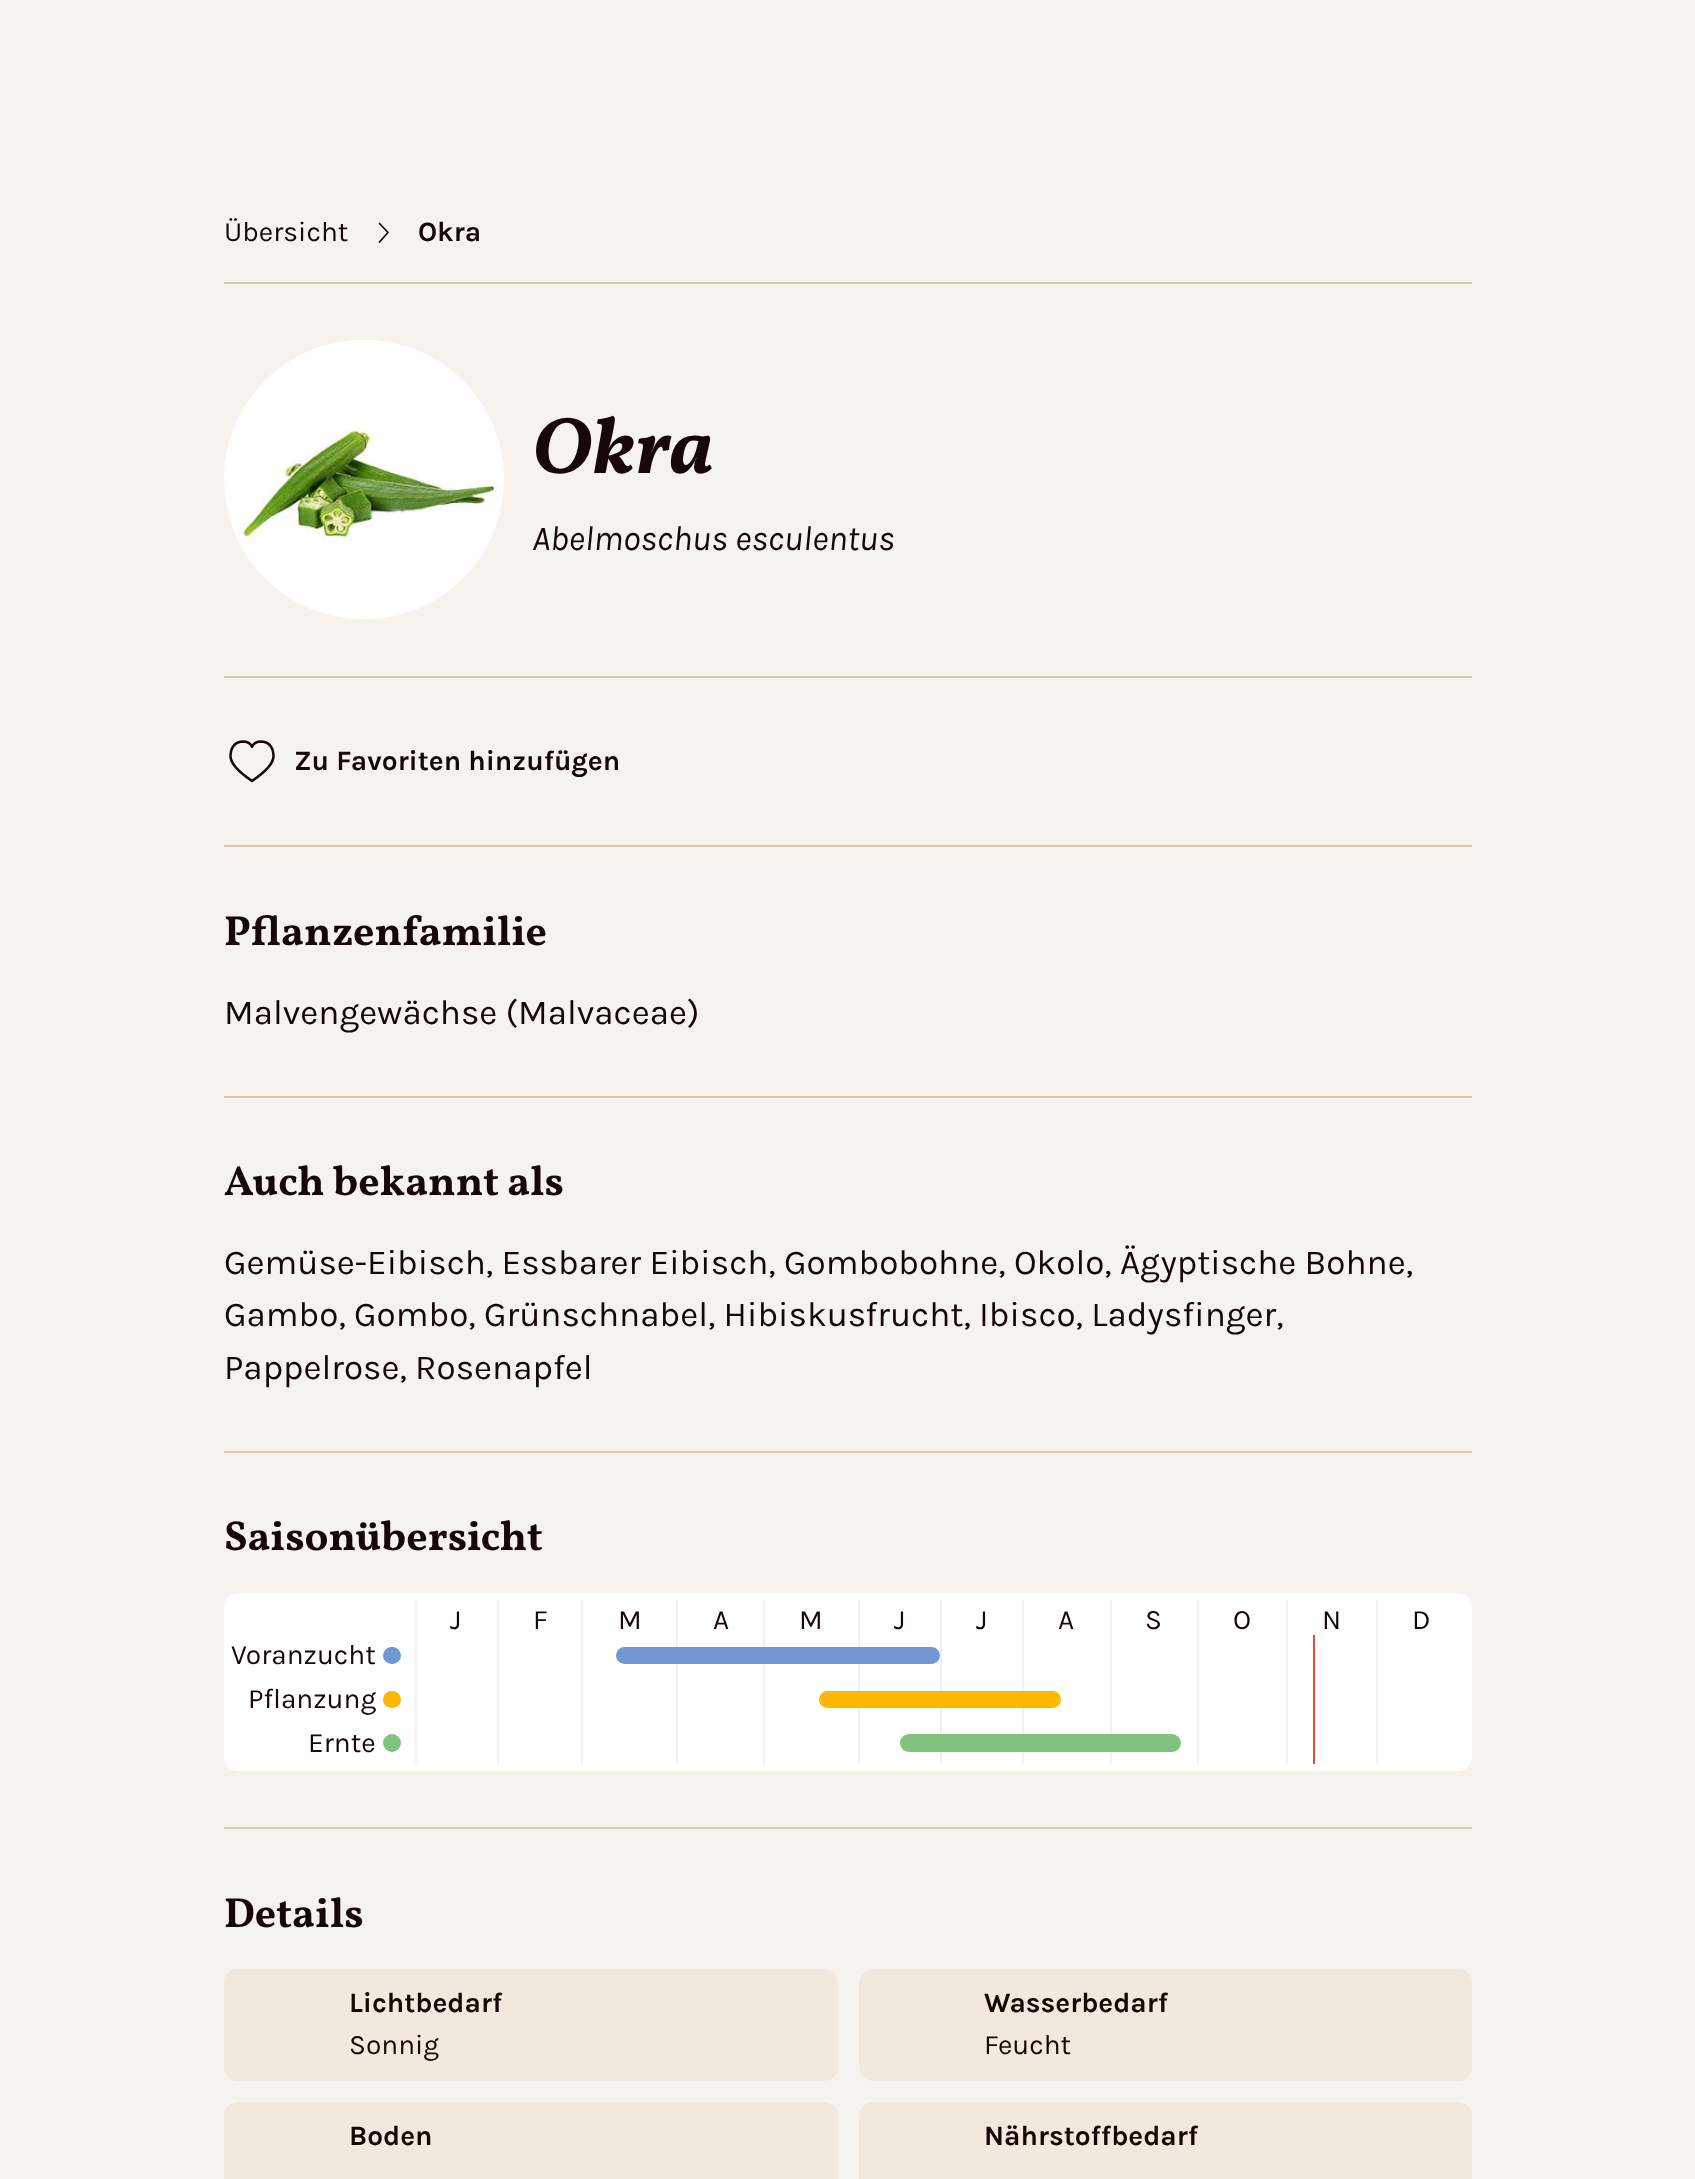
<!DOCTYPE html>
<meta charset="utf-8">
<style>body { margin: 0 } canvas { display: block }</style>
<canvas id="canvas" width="1695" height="2179"></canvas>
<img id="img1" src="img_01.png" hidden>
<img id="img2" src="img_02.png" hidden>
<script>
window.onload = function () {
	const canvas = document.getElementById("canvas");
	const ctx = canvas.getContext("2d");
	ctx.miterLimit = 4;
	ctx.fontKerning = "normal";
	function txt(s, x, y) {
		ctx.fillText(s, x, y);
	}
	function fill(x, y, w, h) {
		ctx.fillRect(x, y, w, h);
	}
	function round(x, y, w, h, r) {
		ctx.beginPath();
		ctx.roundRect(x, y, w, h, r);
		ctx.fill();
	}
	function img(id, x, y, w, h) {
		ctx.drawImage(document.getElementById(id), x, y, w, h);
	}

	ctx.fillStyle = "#F6F2ED";
	fill(0, 0, 1695, 2179);
	ctx.beginPath();
	ctx.moveTo(379.5, 223.5);
	ctx.lineTo(388, 232.5);
	ctx.lineTo(379.5, 242);
	ctx.strokeStyle = "#150807";
	ctx.lineWidth = 1.7;
	ctx.lineCap = "round";
	ctx.lineJoin = "round";
	ctx.stroke();
	ctx.fillStyle = "#D5C6B6";
	fill(224, 282, 1248, 2);
	img("img1", 224, 339, 280, 281);
	fill(224, 676, 1248, 2);
	img("img2", 229, 740, 46, 43);
	fill(224, 845, 1248, 2);
	fill(224, 1096, 1248, 2);
	fill(224, 1451, 1248, 2);
	ctx.fillStyle = "#FFFFFF";
	round(224, 1593, 1248, 178, 14);
	ctx.fillStyle = "#F1F1F1";
	fill(415, 1600, 2, 164);
	fill(497, 1600, 2, 164);
	fill(581, 1600, 2, 164);
	fill(676, 1600, 2, 164);
	fill(763, 1600, 2, 164);
	fill(858, 1600, 2, 164);
	fill(940, 1600, 2, 164);
	fill(1022, 1600, 2, 164);
	fill(1110, 1600, 2, 164);
	fill(1197, 1600, 2, 164);
	fill(1286, 1600, 2, 164);
	fill(1376, 1600, 2, 164);
	ctx.fillStyle = "#7198D3";
	round(616, 1647, 324, 17, 8.5);
	ctx.fillStyle = "#E74D32";
	fill(1313, 1635, 2, 129);
	ctx.fillStyle = "#FFB800";
	round(819, 1691, 242, 17, 8.5);
	ctx.fillStyle = "#80C27E";
	round(900, 1734, 281, 18, 9);
	ctx.fillStyle = "#7198D3";
	round(383, 1647, 18, 17, 8.5);
	ctx.fillStyle = "#FFB800";
	round(383, 1691, 18, 17, 8.5);
	ctx.fillStyle = "#80C27E";
	ctx.beginPath();
	ctx.arc(392, 1743, 9, 0, Math.PI * 2);
	ctx.fill();
	ctx.fillStyle = "#D5C6B6";
	fill(224, 1827, 1248, 2);
	ctx.fillStyle = "#F1E9DE";
	round(224, 1969, 614, 112, 14);
	round(859, 1969, 613, 112, 14);
	ctx.beginPath();
	ctx.moveTo(238, 2102);
	ctx.lineTo(824, 2102);
	ctx.bezierCurveTo(831.5, 2102, 838, 2108.5, 838, 2116);
	ctx.lineTo(838, 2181);
	ctx.lineTo(224, 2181);
	ctx.lineTo(224, 2116);
	ctx.bezierCurveTo(224, 2108.5, 230.5, 2102, 238, 2102);
	ctx.closePath();
	ctx.fill();
	ctx.beginPath();
	ctx.moveTo(873, 2102);
	ctx.lineTo(1458, 2102);
	ctx.bezierCurveTo(1465.5, 2102, 1472, 2108.5, 1472, 2116);
	ctx.lineTo(1472, 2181);
	ctx.lineTo(859, 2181);
	ctx.lineTo(859, 2116);
	ctx.bezierCurveTo(859, 2108.5, 865.5, 2102, 873, 2102);
	ctx.closePath();
	ctx.fill();
	ctx.font = "28px Karla";
	ctx.fillStyle = "#150807";
	txt("Übersicht", 224, 241);
	ctx.font = "bold 28px Karla";
	txt("Okra", 418, 241);
	ctx.font = "italic bold 80.5px Vollkorn";
	txt("Okra", 532, 473);
	ctx.font = "italic 35px Karla";
	txt("Abelmoschus esculentus", 532, 550);
	ctx.font = "bold 28px Karla";
	txt("Zu Favoriten hinzufügen", 294, 770);
	ctx.font = "bold 42px Vollkorn";
	txt("Pflanzenfamilie", 224, 945);
	ctx.font = "35px Karla";
	txt("Malvengewächse (Malvaceae)", 224, 1024);
	ctx.font = "bold 42px Vollkorn";
	txt("Auch bekannt als", 224, 1195);
	ctx.font = "35px Karla";
	txt("Gemüse-Eibisch, Essbarer Eibisch, Gombobohne, Okolo, Ägyptische Bohne,", 224, 1274);
	txt("Gambo, Gombo, Grünschnabel, Hibiskusfrucht, Ibisco, Ladysfinger,", 224, 1326);
	txt("Pappelrose, Rosenapfel", 224, 1379);
	ctx.font = "bold 42px Vollkorn";
	txt("Saisonübersicht", 224, 1550);
	ctx.font = "28px Karla";
	txt("J", 450, 1629);
	txt("F", 533, 1629);
	txt("M", 618, 1629);
	txt("A", 713, 1629);
	txt("M", 799, 1629);
	txt("J", 894, 1629);
	txt("J", 976, 1629);
	txt("A", 1058, 1629);
	txt("S", 1145, 1629);
	txt("O", 1233, 1629);
	txt("N", 1322, 1629);
	txt("D", 1412, 1629);
	txt("Voranzucht", 231, 1664);
	txt("Pflanzung", 248, 1708);
	txt("Ernte", 308, 1752);
	ctx.font = "bold 42px Vollkorn";
	txt("Details", 224, 1927);
	ctx.font = "bold 28px Karla";
	txt("Lichtbedarf", 349, 2012);
	ctx.font = "28px Karla";
	txt("Sonnig", 349, 2054);
	ctx.font = "bold 28px Karla";
	txt("Wasserbedarf", 984, 2012);
	ctx.font = "28px Karla";
	txt("Feucht", 984, 2054);
	ctx.font = "bold 28px Karla";
	txt("Boden", 349, 2145);
	txt("Nährstoffbedarf", 984, 2145);
};
</script>
